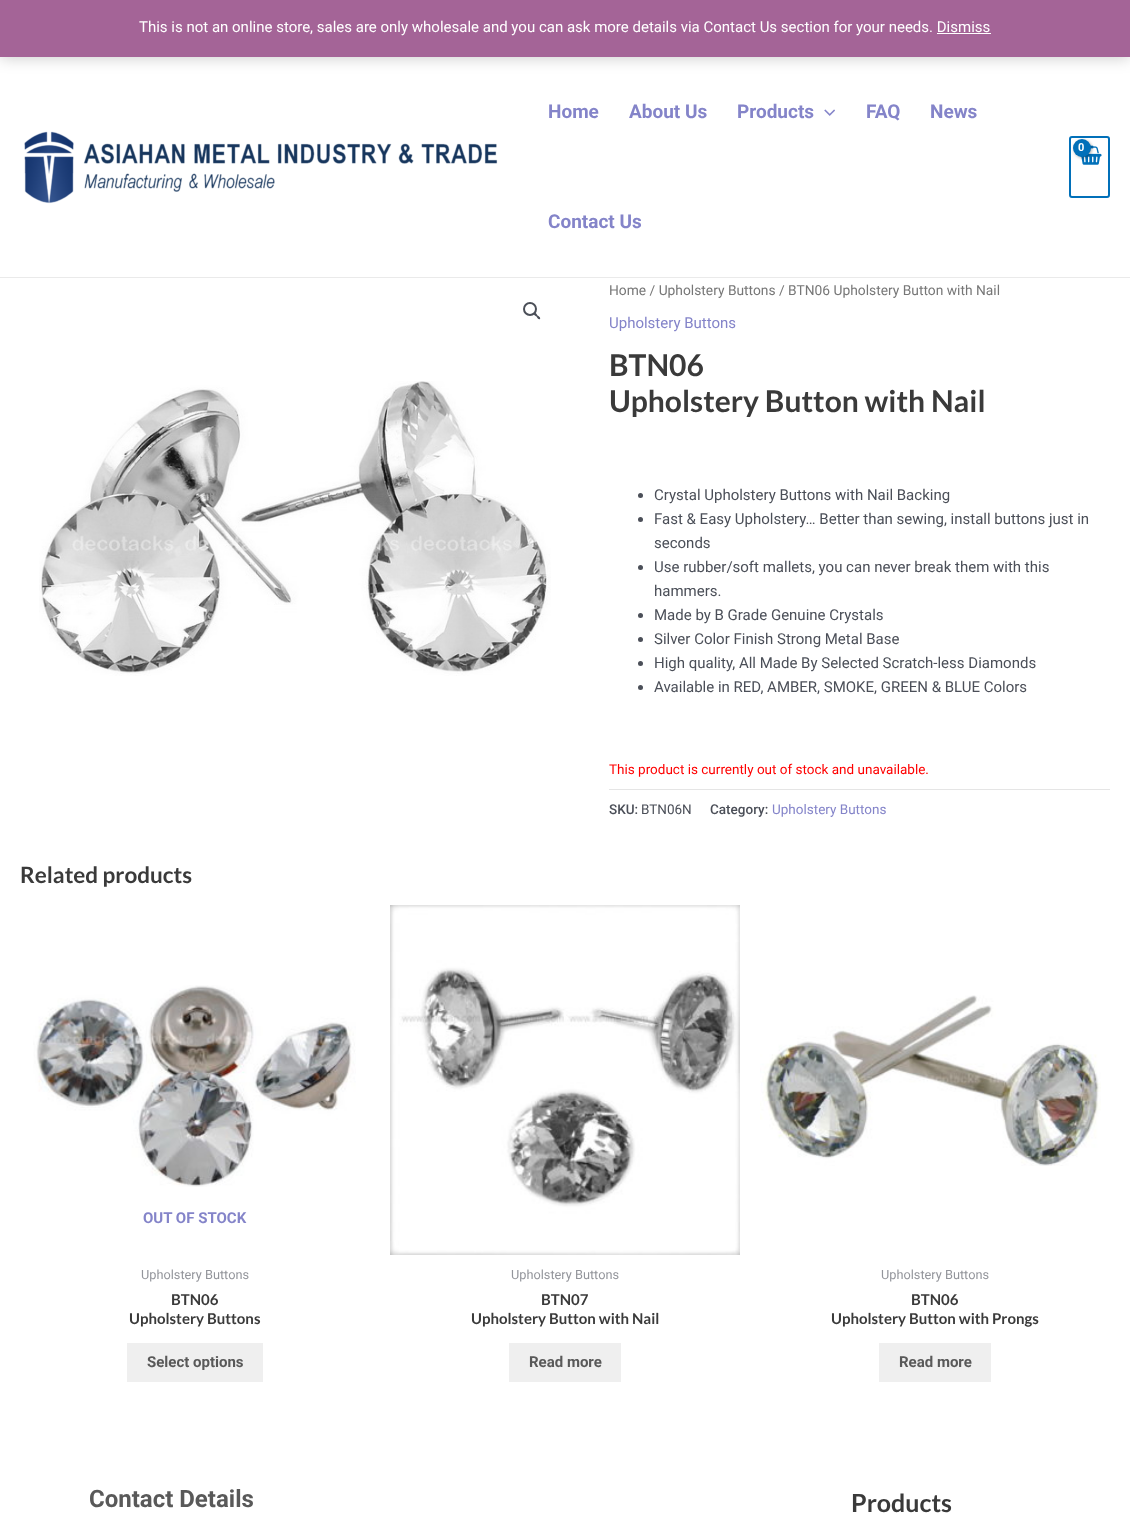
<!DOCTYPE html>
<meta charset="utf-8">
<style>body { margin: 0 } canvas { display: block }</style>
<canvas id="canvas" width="1130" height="1525"></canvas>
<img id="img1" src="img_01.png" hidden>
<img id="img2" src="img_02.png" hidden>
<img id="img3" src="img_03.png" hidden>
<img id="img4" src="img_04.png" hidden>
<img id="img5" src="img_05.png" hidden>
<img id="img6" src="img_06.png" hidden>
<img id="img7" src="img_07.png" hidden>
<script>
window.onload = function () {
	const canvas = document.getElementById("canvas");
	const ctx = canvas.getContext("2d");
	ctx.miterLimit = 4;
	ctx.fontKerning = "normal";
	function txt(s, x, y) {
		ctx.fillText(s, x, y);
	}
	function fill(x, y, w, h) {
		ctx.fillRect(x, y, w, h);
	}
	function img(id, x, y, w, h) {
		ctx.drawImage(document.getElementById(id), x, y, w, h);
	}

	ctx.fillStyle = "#FFFFFF";
	fill(0, 0, 1130, 1525);
	ctx.fillStyle = "rgba(0, 0, 0, 0.2)";
	ctx.filter = "blur(7.5px)";
	ctx.beginPath();
	ctx.rect(0, 1, 1130, 57);
	ctx.fill();
	ctx.filter = "none";
	ctx.fillStyle = "#A46497";
	fill(0, 0, 1130, 57);
	ctx.fillStyle = "#FFFFFF";
	fill(937, 33, 54, 1);
	ctx.fillStyle = "#EAEAEA";
	fill(0, 277, 1130, 1);
	img("img1", 24, 131, 474, 73);
	img("img2", 824, 109, 11, 7);
	ctx.beginPath();
	ctx.roundRect(1070, 137, 39, 60, 2);
	ctx.strokeStyle = "#0170B9";
	ctx.lineWidth = 2;
	ctx.stroke();
	img("img3", 1080, 145, 22, 20);
	ctx.fillStyle = "rgba(0, 0, 0, 0.3)";
	ctx.filter = "blur(1.5px)";
	ctx.beginPath();
	ctx.roundRect(1074, 140, 18, 18, 9);
	ctx.fill();
	ctx.filter = "none";
	ctx.fillStyle = "#0170B9";
	ctx.beginPath();
	ctx.arc(1082, 148, 9, 0, Math.PI * 2);
	ctx.fill();
	ctx.beginPath();
	ctx.arc(530, 309, 6, 0, Math.PI * 2);
	ctx.strokeStyle = "#4B4F58";
	ctx.stroke();
	ctx.fillStyle = "#4B4F58";
	ctx.beginPath();
	ctx.moveTo(534, 313);
	ctx.bezierCurveTo(535.5, 312, 537, 314.5, 537.5, 315.5);
	ctx.bezierCurveTo(538.5, 316, 541, 317.5, 540, 319);
	ctx.bezierCurveTo(538.5, 320, 537, 317.5, 536.5, 316.5);
	ctx.bezierCurveTo(535.5, 316, 533, 314.5, 534, 313);
	ctx.closePath();
	ctx.fill();
	img("img4", 39, 381, 512, 295);
	ctx.beginPath();
	ctx.arc(640.5, 495.5, 2.5, 0, Math.PI * 2);
	ctx.fill();
	ctx.beginPath();
	ctx.arc(640.5, 519.5, 2.5, 0, Math.PI * 2);
	ctx.fill();
	ctx.beginPath();
	ctx.arc(640.5, 567.5, 2.5, 0, Math.PI * 2);
	ctx.fill();
	ctx.beginPath();
	ctx.arc(640.5, 615.5, 2.5, 0, Math.PI * 2);
	ctx.fill();
	ctx.beginPath();
	ctx.arc(640.5, 639.5, 2.5, 0, Math.PI * 2);
	ctx.fill();
	ctx.beginPath();
	ctx.arc(640.5, 663.5, 2.5, 0, Math.PI * 2);
	ctx.fill();
	ctx.beginPath();
	ctx.arc(640.5, 687.5, 2.5, 0, Math.PI * 2);
	ctx.fill();
	ctx.fillStyle = "#E5E5E5";
	fill(609, 789, 501, 1);
	img("img5", 33, 985, 323, 202);
	ctx.fillStyle = "#EFEFEF";
	fill(127, 1343, 136, 39);
	img("img6", 390, 905, 350, 350);
	fill(509, 1343, 112, 39);
	img("img7", 760, 995, 341, 171);
	fill(879, 1343, 112, 39);
	ctx.font = "15px Roboto";
	ctx.fillStyle = "#FFFFFF";
	txt("This is not an online store, sales are only wholesale and you can ask more details via Contact Us section for your needs. Dismiss", 139, 32);
	ctx.font = "bold 19px Roboto";
	ctx.fillStyle = "#8484C9";
	txt("Home", 548, 118);
	txt("About Us", 629, 118);
	txt("Products", 737, 118);
	txt("FAQ", 866, 118);
	txt("News", 930, 118);
	txt("Contact Us", 548, 228);
	ctx.font = "bold 11px Roboto";
	ctx.fillStyle = "#FFFFFF";
	txt("0", 1078, 151);
	ctx.font = "13.8px Roboto";
	ctx.fillStyle = "#777777";
	txt("Home / Upholstery Buttons / BTN06 Upholstery Button with Nail", 609, 295);
	ctx.font = "15px Roboto";
	ctx.fillStyle = "#8484C9";
	txt("Upholstery Buttons", 609, 328);
	ctx.font = "bold 30px Lato";
	ctx.fillStyle = "#3A3A3A";
	txt("BTN06", 609, 376);
	txt("Upholstery Button with Nail", 609, 412);
	ctx.font = "15px Roboto";
	ctx.fillStyle = "#4B4F58";
	txt("Crystal Upholstery Buttons with Nail Backing", 654, 500);
	txt("Fast & Easy Upholstery… Better than sewing, install buttons just in", 654, 524);
	txt("seconds", 654, 548);
	txt("Use rubber/soft mallets, you can never break them with this", 654, 572);
	txt("hammers.", 654, 596);
	txt("Made by B Grade Genuine Crystals", 654, 620);
	txt("Silver Color Finish Strong Metal Base", 654, 644);
	txt("High quality, All Made By Selected Scratch-less Diamonds", 654, 668);
	txt("Available in RED, AMBER, SMOKE, GREEN & BLUE Colors", 654, 692);
	ctx.font = "13.5px Roboto";
	ctx.fillStyle = "#FF0000";
	txt("This product is currently out of stock and unavailable.", 609, 774);
	ctx.font = "500 13.5px Roboto";
	ctx.fillStyle = "#4B4F58";
	txt("SKU:", 609, 814);
	ctx.font = "13.5px Roboto";
	txt("BTN06N", 641, 814);
	ctx.font = "500 13.5px Roboto";
	txt("Category:", 710, 814);
	ctx.font = "13.5px Roboto";
	ctx.fillStyle = "#8484C9";
	txt("Upholstery Buttons", 772, 814);
	ctx.font = "bold 22.5px Lato";
	ctx.fillStyle = "#3A3A3A";
	txt("Related products", 20, 883);
	ctx.font = "bold 15px Roboto";
	ctx.fillStyle = "#8484C9";
	txt("OUT OF STOCK", 143, 1223);
	ctx.font = "12.75px Roboto";
	ctx.fillStyle = "#93959B";
	txt("Upholstery Buttons", 141, 1279);
	ctx.font = "bold 15px Lato";
	ctx.fillStyle = "#3A3A3A";
	txt("BTN06", 171, 1305);
	txt("Upholstery Buttons", 129, 1324);
	ctx.font = "bold 15px Roboto";
	ctx.fillStyle = "#595959";
	txt("Select options", 147, 1367);
	ctx.font = "12.75px Roboto";
	ctx.fillStyle = "#93959B";
	txt("Upholstery Buttons", 511, 1279);
	ctx.font = "bold 15px Lato";
	ctx.fillStyle = "#3A3A3A";
	txt("BTN07", 541, 1305);
	txt("Upholstery Button with Nail", 471, 1324);
	ctx.font = "bold 15px Roboto";
	ctx.fillStyle = "#595959";
	txt("Read more", 529, 1367);
	ctx.font = "12.75px Roboto";
	ctx.fillStyle = "#93959B";
	txt("Upholstery Buttons", 881, 1279);
	ctx.font = "bold 15px Lato";
	ctx.fillStyle = "#3A3A3A";
	txt("BTN06", 911, 1305);
	txt("Upholstery Button with Prongs", 831, 1324);
	ctx.font = "bold 15px Roboto";
	ctx.fillStyle = "#595959";
	txt("Read more", 899, 1367);
	ctx.font = "bold 24px Roboto";
	txt("Contact Details", 89, 1507);
	ctx.font = "bold 25px Lato";
	ctx.fillStyle = "#3A3A3A";
	txt("Products", 851, 1512);
};
</script>
